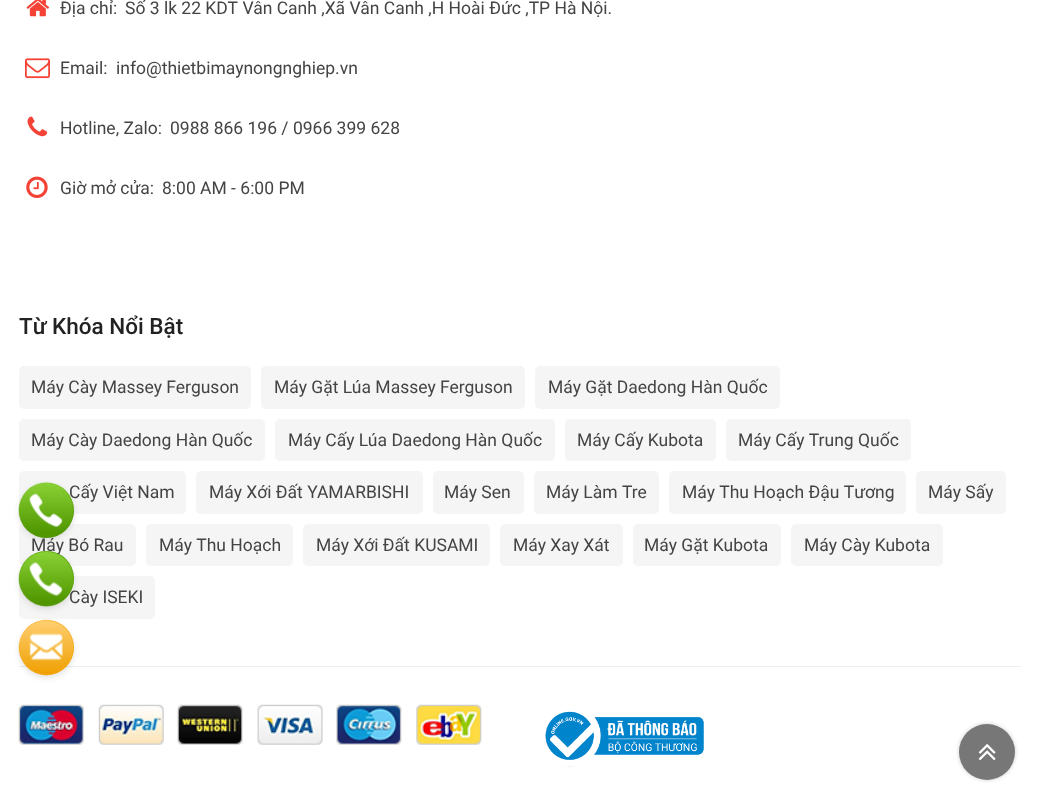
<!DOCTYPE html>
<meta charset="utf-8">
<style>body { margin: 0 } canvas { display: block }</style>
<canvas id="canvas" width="1039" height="804"></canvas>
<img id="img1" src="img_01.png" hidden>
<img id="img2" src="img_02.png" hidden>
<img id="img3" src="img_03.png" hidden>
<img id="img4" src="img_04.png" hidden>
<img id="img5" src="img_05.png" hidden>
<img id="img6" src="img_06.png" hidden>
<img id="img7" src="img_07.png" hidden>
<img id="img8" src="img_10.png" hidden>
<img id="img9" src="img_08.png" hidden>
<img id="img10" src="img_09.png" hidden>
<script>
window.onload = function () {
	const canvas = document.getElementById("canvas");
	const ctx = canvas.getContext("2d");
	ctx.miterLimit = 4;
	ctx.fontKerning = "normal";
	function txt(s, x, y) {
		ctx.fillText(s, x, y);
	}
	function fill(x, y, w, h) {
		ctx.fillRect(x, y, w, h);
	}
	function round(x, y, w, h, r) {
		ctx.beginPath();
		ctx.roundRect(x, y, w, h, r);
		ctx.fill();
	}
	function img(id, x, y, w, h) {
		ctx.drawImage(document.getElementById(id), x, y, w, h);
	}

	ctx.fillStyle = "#FFFFFF";
	fill(0, 0, 1039, 804);
	img("img1", 26, 0, 24, 17);
	img("img2", 25, 58, 25, 21);
	img("img3", 27, 116, 21, 21);
	img("img4", 26, 176, 22, 22);
	ctx.fillStyle = "#F5F5F5";
	round(19, 366, 232, 43, 5);
	round(261, 366, 264, 43, 5);
	round(535, 366, 245, 43, 5);
	round(19, 419, 246, 42, 5);
	round(275, 419, 280, 42, 5);
	round(565, 419, 151, 42, 5);
	round(726, 419, 185, 42, 5);
	round(19, 471, 167, 43, 5);
	round(196, 471, 227, 43, 5);
	round(433, 471, 91, 43, 5);
	round(534, 471, 125, 43, 5);
	round(669, 471, 237, 43, 5);
	round(916, 471, 90, 43, 5);
	round(19, 524, 117, 42, 5);
	round(146, 524, 147, 42, 5);
	round(303, 524, 187, 42, 5);
	round(500, 524, 123, 42, 5);
	round(633, 524, 148, 42, 5);
	round(791, 524, 152, 42, 5);
	round(19, 576, 136, 43, 5);
	ctx.fillStyle = "#EEEEEE";
	fill(19, 666, 1002, 1);
	img("img5", 18, 704, 464, 41);
	img("img6", 539, 705, 165, 62);
	ctx.fillStyle = "#CCCCCC";
	ctx.filter = "blur(2px)";
	ctx.beginPath();
	ctx.roundRect(959, 724, 56, 56, 28);
	ctx.fill();
	ctx.filter = "none";
	ctx.fillStyle = "#777777";
	ctx.beginPath();
	ctx.arc(987, 752, 28, 0, Math.PI * 2);
	ctx.fill();
	img("img7", 978, 744, 18, 17);
	ctx.fillStyle = "rgba(0, 0, 0, 0.11)";
	ctx.filter = "blur(3px)";
	ctx.beginPath();
	ctx.roundRect(19, 485, 55, 55, 27.5);
	ctx.fill();
	ctx.filter = "none";
	ctx.filter = "blur(3px)";
	ctx.beginPath();
	ctx.roundRect(19, 554, 55, 55, 27.5);
	ctx.fill();
	ctx.filter = "none";
	ctx.filter = "blur(3px)";
	ctx.beginPath();
	ctx.roundRect(19, 623, 55, 55, 27.5);
	ctx.fill();
	ctx.filter = "none";
	ctx.fillStyle = "#F7A400";
	ctx.beginPath();
	ctx.arc(46.5, 647.5, 27.5, 0, Math.PI * 2);
	ctx.fill();
	img("img8", 18, 619, 56, 57);
	ctx.font = "17.5px Roboto";
	ctx.fillStyle = "#444444";
	txt("Địa chỉ:", 60, 14);
	txt("Số 3 lk 22 KDT Vân Canh ,Xã Vân Canh ,H Hoài Đức ,TP Hà Nội.", 125, 14);
	txt("Email:", 60, 74);
	txt("info@thietbimaynongnghiep.vn", 116, 74);
	txt("Hotline, Zalo:", 60, 134);
	txt("0988 866 196 / 0966 399 628", 170, 134);
	txt("Giờ mở cửa:", 60, 194);
	txt("8:00 AM - 6:00 PM", 162, 194);
	ctx.font = "500 22.5px Roboto";
	ctx.fillStyle = "#222222";
	txt("Từ Khóa Nổi Bật", 19, 334);
	ctx.font = "17.5px Roboto";
	ctx.fillStyle = "#444444";
	txt("Máy Cày Massey Ferguson", 31, 393);
	txt("Máy Gặt Lúa Massey Ferguson", 274, 393);
	txt("Máy Gặt Daedong Hàn Quốc", 548, 393);
	txt("Máy Cày Daedong Hàn Quốc", 31, 446);
	txt("Máy Cấy Lúa Daedong Hàn Quốc", 288, 446);
	txt("Máy Cấy Kubota", 577, 446);
	txt("Máy Cấy Trung Quốc", 738, 446);
	txt("Cấy Việt Nam", 69, 498);
	txt("Máy Xới Đất YAMARBISHI", 209, 498);
	txt("Máy Sen", 444, 498);
	txt("Máy Làm Tre", 546, 498);
	txt("Máy Thu Hoạch Đậu Tương", 682, 498);
	txt("Máy Sấy", 928, 498);
	txt("Máy Bó Rau", 31, 551);
	txt("Máy Thu Hoạch", 159, 551);
	txt("Máy Xới Đất KUSAMI", 316, 551);
	txt("Máy Xay Xát", 513, 551);
	txt("Máy Gặt Kubota", 644, 551);
	txt("Máy Cày Kubota", 804, 551);
	txt("Cày ISEKI", 69, 603);
	ctx.fillStyle = "#509600";
	ctx.beginPath();
	ctx.arc(46.5, 510.5, 27.5, 0, Math.PI * 2);
	ctx.fill();
	img("img9", 18, 482, 56, 56);
	ctx.beginPath();
	ctx.arc(46.5, 578.5, 27.5, 0, Math.PI * 2);
	ctx.fill();
	img("img10", 18, 550, 56, 57);
};
</script>
